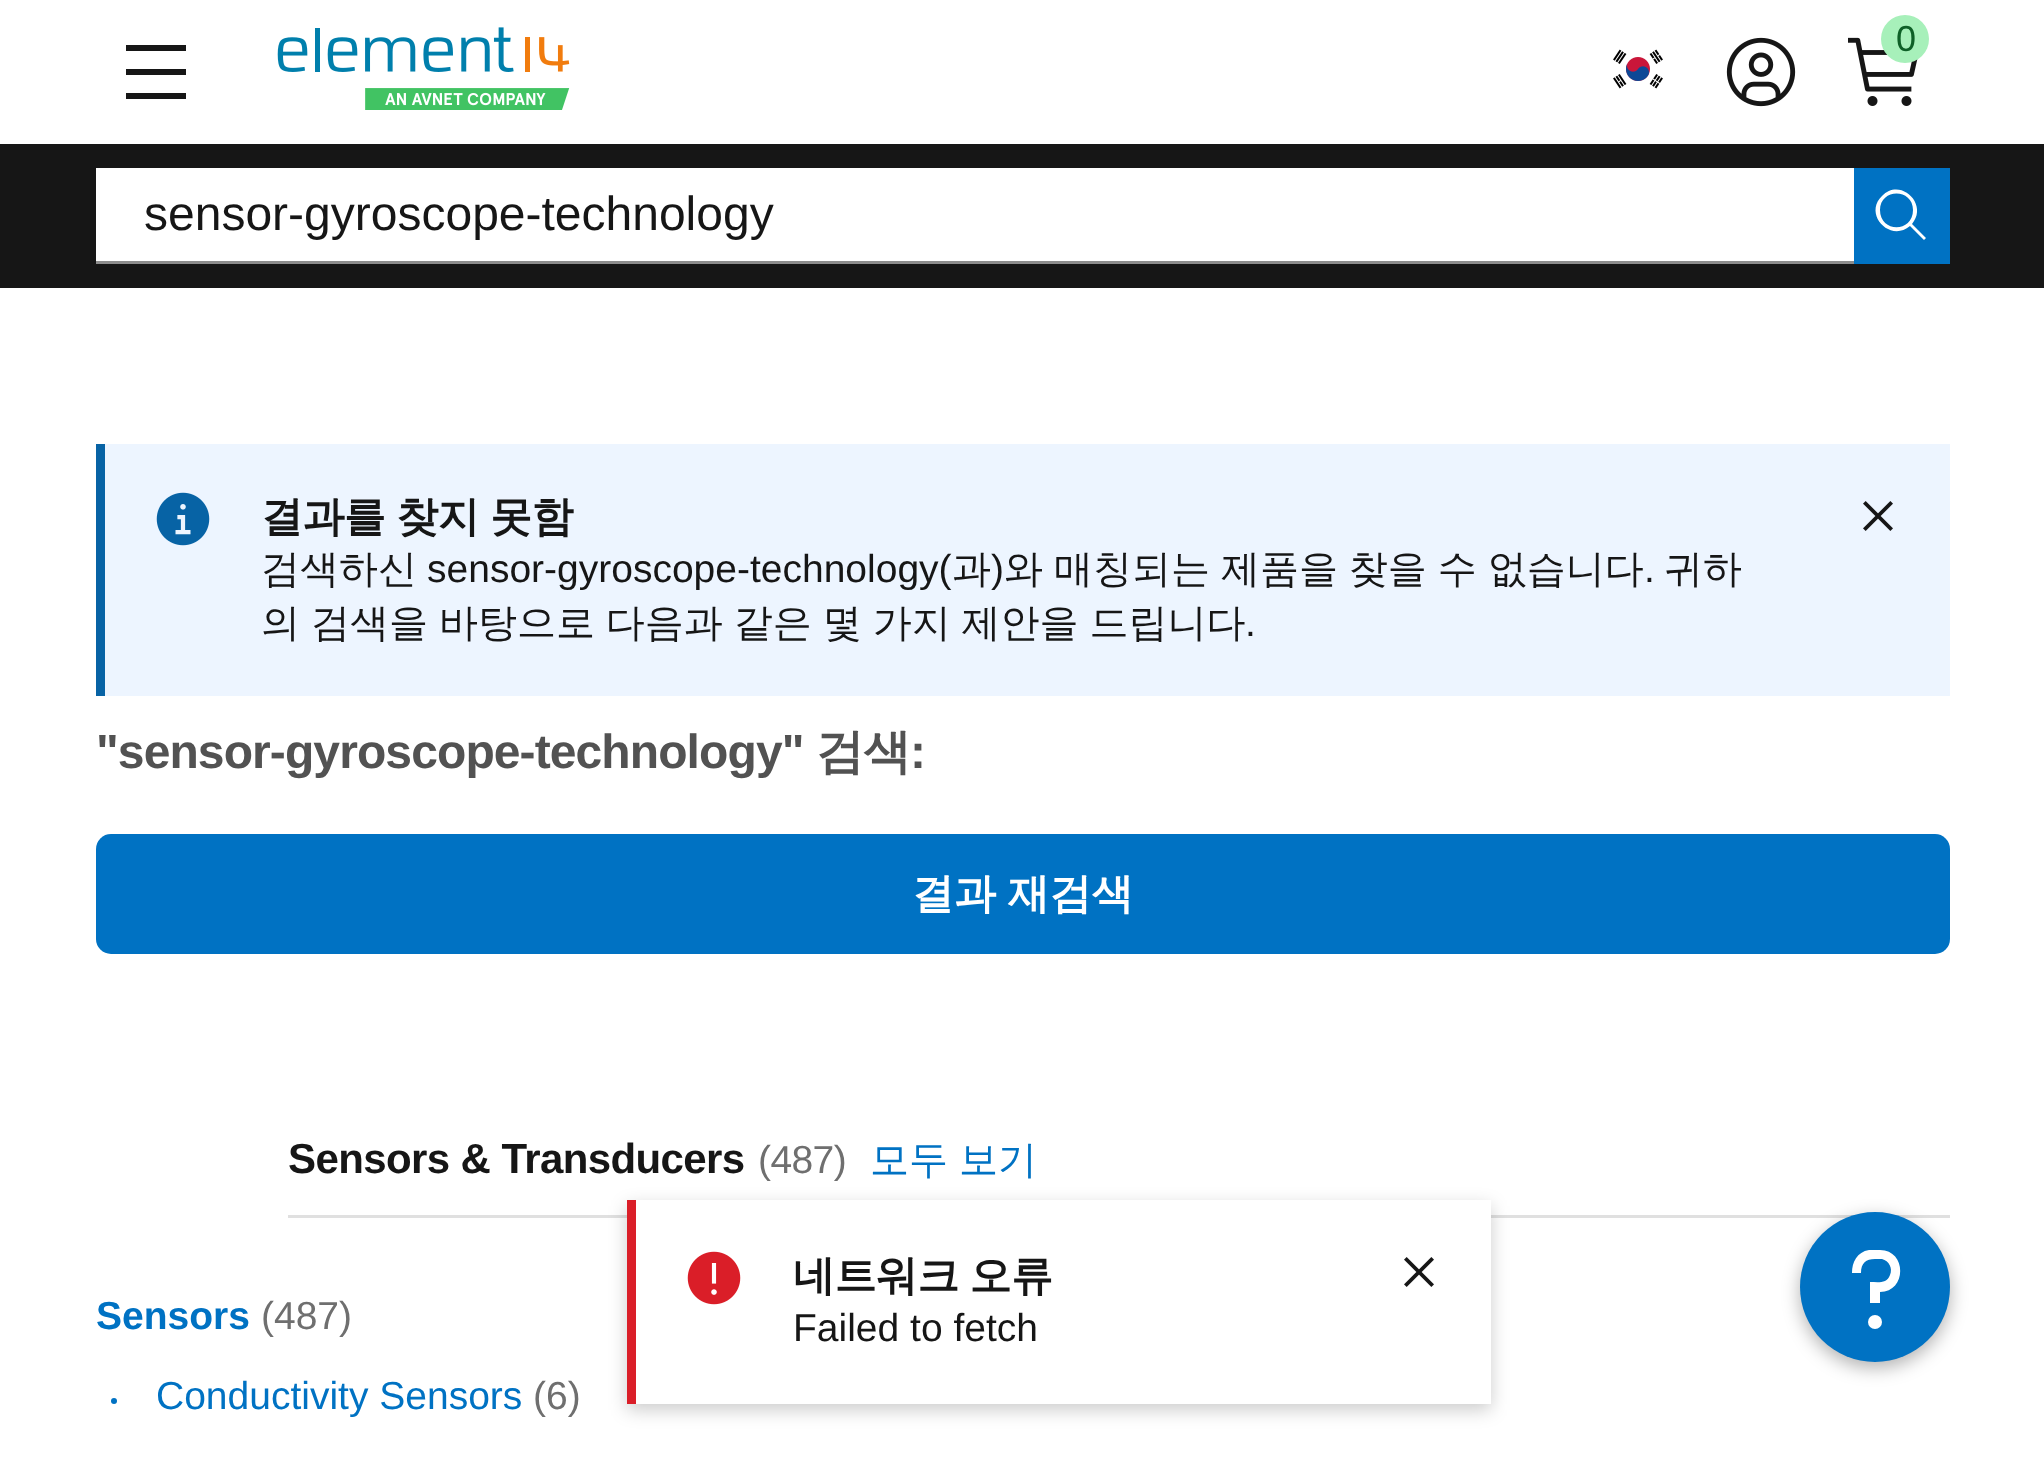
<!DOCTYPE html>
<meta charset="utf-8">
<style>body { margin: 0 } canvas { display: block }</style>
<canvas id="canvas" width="2044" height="1457"></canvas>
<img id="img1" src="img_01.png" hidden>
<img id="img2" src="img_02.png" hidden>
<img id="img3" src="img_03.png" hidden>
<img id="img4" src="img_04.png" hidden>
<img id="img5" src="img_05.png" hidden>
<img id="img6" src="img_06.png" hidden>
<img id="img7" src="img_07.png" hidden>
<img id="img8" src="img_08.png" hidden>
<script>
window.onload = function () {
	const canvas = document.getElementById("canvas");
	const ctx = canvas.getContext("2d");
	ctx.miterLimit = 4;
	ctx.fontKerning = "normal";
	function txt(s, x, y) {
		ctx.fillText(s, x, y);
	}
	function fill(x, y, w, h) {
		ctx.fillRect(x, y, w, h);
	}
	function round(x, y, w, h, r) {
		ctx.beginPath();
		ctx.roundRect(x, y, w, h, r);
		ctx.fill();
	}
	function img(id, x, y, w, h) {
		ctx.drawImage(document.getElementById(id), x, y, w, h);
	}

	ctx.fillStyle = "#FFFFFF";
	fill(0, 0, 2044, 1457);
	ctx.fillStyle = "#161616";
	fill(126, 45, 60, 6);
	fill(126, 69, 60, 6);
	fill(126, 93, 60, 6);
	img("img1", 277, 27, 293, 83);
	img("img2", 1613, 49, 50, 40);
	img("img3", 1726, 37, 70, 70);
	img("img4", 1848, 37, 70, 69);
	ctx.fillStyle = "#A7F0BA";
	ctx.beginPath();
	ctx.arc(1905, 39, 24, 0, Math.PI * 2);
	ctx.fill();
	ctx.fillStyle = "#161616";
	fill(0, 144, 2044, 144);
	ctx.fillStyle = "#FFFFFF";
	fill(96, 168, 1758, 93);
	ctx.fillStyle = "#8D8D8D";
	fill(96, 261, 1758, 3);
	ctx.fillStyle = "#0072C3";
	fill(1854, 168, 96, 96);
	ctx.fillStyle = "#FFFFFF";
	ctx.beginPath();
	ctx.moveTo(1926, 238);
	ctx.lineTo(1912, 224);
	ctx.bezierCurveTo(1929, 204, 1900, 177, 1882, 196);
	ctx.bezierCurveTo(1863, 214, 1890, 243, 1910, 226);
	ctx.lineTo(1924, 240);
	ctx.closePath();
	ctx.moveTo(1880, 210);
	ctx.bezierCurveTo(1880, 188, 1913, 188, 1913, 210);
	ctx.bezierCurveTo(1913, 233, 1880, 233, 1880, 210);
	ctx.closePath();
	ctx.fill();
	ctx.fillStyle = "#EDF5FF";
	fill(105, 444, 1845, 252);
	ctx.fillStyle = "#0763A5";
	fill(96, 444, 9, 252);
	img("img5", 156, 492, 54, 54);
	img("img6", 1863, 501, 30, 30);
	ctx.fillStyle = "#0072C3";
	round(96, 834, 1854, 120, 15);
	ctx.fillStyle = "#E0E0E0";
	fill(288, 1215, 1662, 3);
	ctx.fillStyle = "#0072C3";
	ctx.beginPath();
	ctx.arc(114, 1401, 3, 0, Math.PI * 2);
	ctx.fill();
	ctx.fillStyle = "rgba(0, 0, 0, 0.2)";
	ctx.filter = "blur(9px)";
	ctx.beginPath();
	ctx.rect(627, 1206, 864, 204);
	ctx.fill();
	ctx.filter = "none";
	ctx.fillStyle = "#FFFFFF";
	fill(636, 1200, 855, 204);
	ctx.fillStyle = "#DA1E28";
	fill(627, 1200, 9, 204);
	img("img7", 687, 1251, 54, 54);
	img("img8", 1404, 1257, 30, 30);
	ctx.fillStyle = "rgba(0, 0, 0, 0.3)";
	ctx.filter = "blur(9px)";
	ctx.beginPath();
	ctx.roundRect(1800, 1218, 150, 150, 75);
	ctx.fill();
	ctx.filter = "none";
	ctx.fillStyle = "#0072C3";
	ctx.beginPath();
	ctx.arc(1875, 1287, 75, 0, Math.PI * 2);
	ctx.fill();
	ctx.fillStyle = "#FFFFFF";
	ctx.beginPath();
	ctx.arc(1875, 1322, 7, 0, Math.PI * 2);
	ctx.fill();
	ctx.beginPath();
	ctx.moveTo(1880, 1250);
	ctx.lineTo(1869, 1250);
	ctx.bezierCurveTo(1857, 1252, 1852, 1262, 1852, 1273);
	ctx.lineTo(1861, 1273);
	ctx.bezierCurveTo(1861, 1263, 1866, 1259, 1875, 1259);
	ctx.lineTo(1882, 1259);
	ctx.bezierCurveTo(1889, 1261, 1893, 1268, 1890, 1275);
	ctx.bezierCurveTo(1887, 1284, 1878, 1282, 1870, 1282);
	ctx.lineTo(1870, 1303);
	ctx.lineTo(1880, 1303);
	ctx.lineTo(1880, 1292);
	ctx.bezierCurveTo(1907, 1292, 1907, 1250, 1880, 1250);
	ctx.closePath();
	ctx.fill();
	ctx.font = "36px Liberation Sans";
	ctx.fillStyle = "#0E6027";
	txt("0", 1896, 51);
	ctx.font = "48px Liberation Sans";
	ctx.fillStyle = "#161616";
	txt("sensor-gyroscope-technology", 144, 230);
	ctx.letterSpacing = "-0.6px";
	ctx.wordSpacing = "-1px";
	ctx.font = "bold 42px WenQuanYi Zen Hei";
	txt("결과를 찾지 못함", 261, 531);
	ctx.letterSpacing = "0px";
	ctx.wordSpacing = "0px";
	ctx.font = "500 39px WenQuanYi Zen Hei";
	txt("검색하신", 261, 582);
	ctx.font = "39px Liberation Sans";
	txt("sensor-gyroscope-technology(", 427, 582);
	ctx.font = "500 39px WenQuanYi Zen Hei";
	txt("과", 952, 582);
	ctx.font = "39px Liberation Sans";
	txt(")", 991, 582);
	ctx.wordSpacing = "-0.75px";
	ctx.font = "500 39px WenQuanYi Zen Hei";
	txt("와 매칭되는 제품을 찾을 수 없습니다", 1004, 582);
	ctx.wordSpacing = "0px";
	ctx.font = "39px Liberation Sans";
	txt(".", 1644, 582);
	ctx.font = "500 39px WenQuanYi Zen Hei";
	txt("귀하", 1664, 582);
	ctx.wordSpacing = "-0.75px";
	txt("의 검색을 바탕으로 다음과 같은 몇 가지 제안을 드립니다", 261, 636);
	ctx.wordSpacing = "0px";
	ctx.font = "39px Liberation Sans";
	txt(".", 1245, 636);
	ctx.letterSpacing = "-0.9px";
	ctx.font = "bold 48px Liberation Sans";
	ctx.fillStyle = "#525252";
	txt("\"sensor-gyroscope-technology\"", 96, 768);
	ctx.font = "bold 48px WenQuanYi Zen Hei";
	txt("검색", 816, 768);
	ctx.font = "bold 48px Liberation Sans";
	txt(":", 910, 768);
	ctx.letterSpacing = "0px";
	ctx.wordSpacing = "-1px";
	ctx.font = "bold 42px WenQuanYi Zen Hei";
	ctx.fillStyle = "#FFFFFF";
	txt("결과 재검색", 912, 908);
	ctx.letterSpacing = "-0.6px";
	ctx.wordSpacing = "0px";
	ctx.font = "bold 42px Liberation Sans";
	ctx.fillStyle = "#161616";
	txt("Sensors & Transducers", 288, 1173);
	ctx.font = "39px Liberation Sans";
	ctx.fillStyle = "#6F6F6F";
	txt("(487)", 758, 1173);
	ctx.letterSpacing = "0px";
	ctx.wordSpacing = "-0.75px";
	ctx.font = "500 39px WenQuanYi Zen Hei";
	ctx.fillStyle = "#0072C3";
	txt("모두 보기", 870, 1173);
	ctx.wordSpacing = "0px";
	ctx.font = "bold 39px Liberation Sans";
	txt("Sensors", 96, 1329);
	ctx.font = "39px Liberation Sans";
	ctx.fillStyle = "#6F6F6F";
	txt("(487)", 261, 1329);
	ctx.fillStyle = "#0072C3";
	txt("Conductivity Sensors", 156, 1409);
	ctx.fillStyle = "#6F6F6F";
	txt("(6)", 533, 1409);
	ctx.letterSpacing = "-0.6px";
	ctx.wordSpacing = "-1px";
	ctx.font = "bold 42px WenQuanYi Zen Hei";
	ctx.fillStyle = "#161616";
	txt("네트워크 오류", 793, 1290);
	ctx.letterSpacing = "0px";
	ctx.wordSpacing = "0px";
	ctx.font = "39px Liberation Sans";
	txt("Failed to fetch", 793, 1341);
};
</script>
